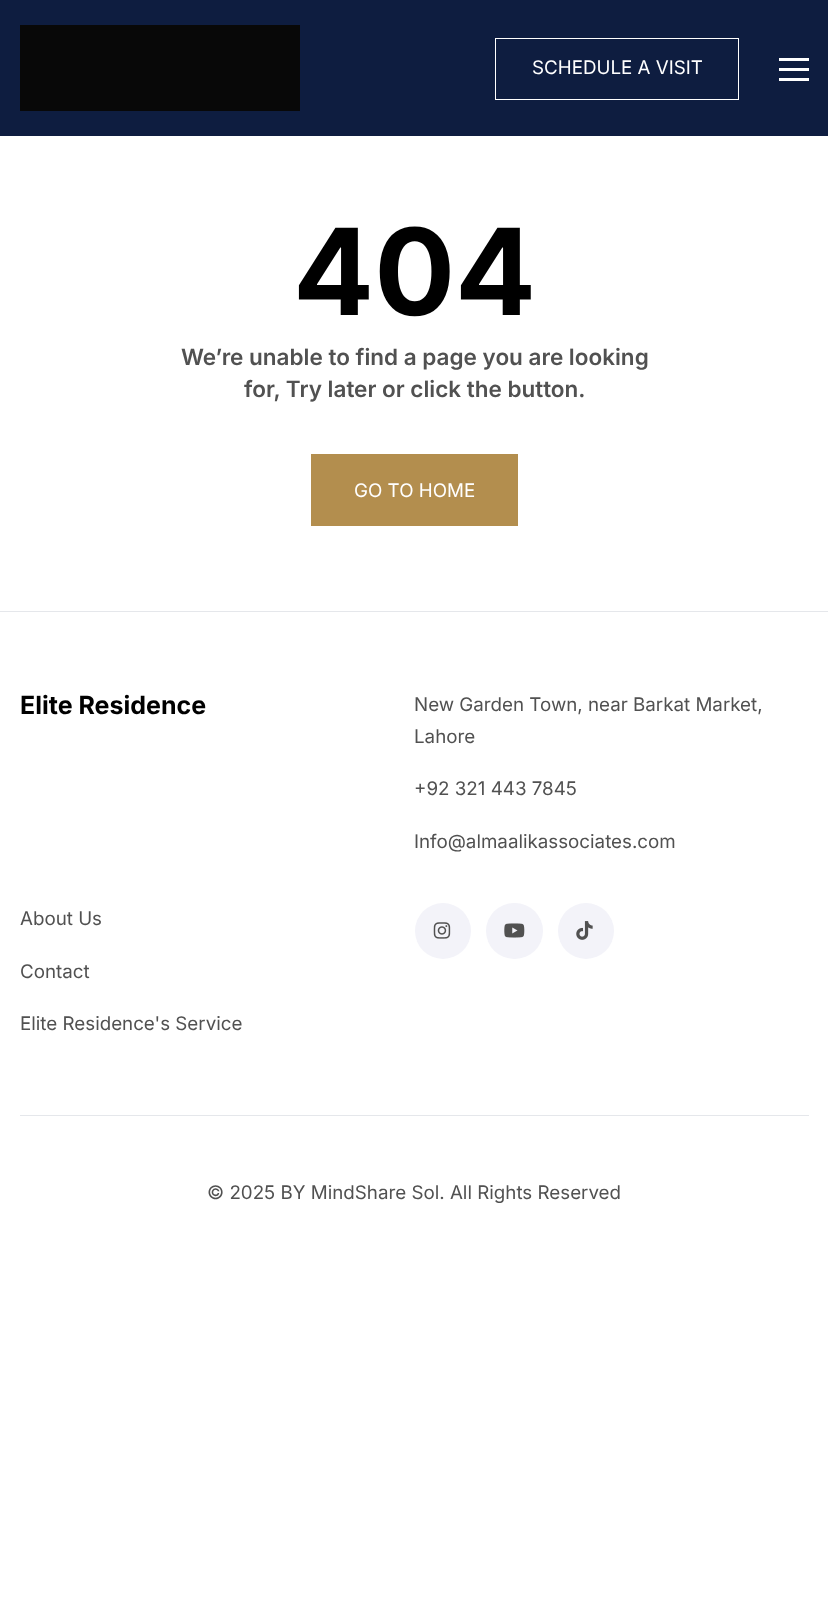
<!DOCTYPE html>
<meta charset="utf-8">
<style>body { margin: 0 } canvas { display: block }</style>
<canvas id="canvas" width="828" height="1624"></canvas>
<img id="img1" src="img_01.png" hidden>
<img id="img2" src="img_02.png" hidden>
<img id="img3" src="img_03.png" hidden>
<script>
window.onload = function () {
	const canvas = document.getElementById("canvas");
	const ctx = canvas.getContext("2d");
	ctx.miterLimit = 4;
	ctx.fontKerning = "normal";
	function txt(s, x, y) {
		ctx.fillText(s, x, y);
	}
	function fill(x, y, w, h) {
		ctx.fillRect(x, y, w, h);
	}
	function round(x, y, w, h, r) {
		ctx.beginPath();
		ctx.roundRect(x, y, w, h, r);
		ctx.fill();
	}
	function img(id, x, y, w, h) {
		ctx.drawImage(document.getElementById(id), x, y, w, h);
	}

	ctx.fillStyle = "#FFFFFF";
	fill(0, 0, 828, 1624);
	ctx.fillStyle = "#0E1D40";
	fill(0, 0, 828, 136);
	ctx.fillStyle = "#080808";
	fill(20, 25, 280, 86);
	ctx.strokeStyle = "#FFFFFF";
	ctx.strokeRect(495.5, 38.5, 243, 61);
	ctx.fillStyle = "#FFFFFF";
	fill(779, 58, 30, 3);
	fill(779, 68, 30, 3);
	fill(779, 78, 30, 3);
	ctx.fillStyle = "#E5E7EB";
	fill(0, 611, 828, 1);
	ctx.fillStyle = "#B38E4E";
	fill(311, 454, 207, 72);
	ctx.fillStyle = "#E5E7EB";
	fill(20, 1115, 789, 1);
	ctx.fillStyle = "#F3F3F9";
	ctx.beginPath();
	ctx.arc(443, 931, 28, 0, Math.PI * 2);
	ctx.fill();
	img("img1", 433, 922, 18, 17);
	round(486, 903, 57, 56, 28);
	img("img2", 504, 923, 21, 15);
	ctx.beginPath();
	ctx.arc(586, 931, 28, 0, Math.PI * 2);
	ctx.fill();
	img("img3", 576, 921, 17, 19);
	ctx.font = "18.75px Inter";
	ctx.fillStyle = "#FFFFFF";
	txt("SCHEDULE A VISIT", 532, 74);
	ctx.font = "bold 120px Inter";
	ctx.fillStyle = "#000000";
	txt("404", 293, 315);
	ctx.font = "600 22.5px Inter";
	ctx.fillStyle = "#515151";
	txt("We’re unable to find a page you are looking", 181, 365);
	txt("for, Try later or click the button.", 244, 397);
	ctx.font = "18.75px Inter";
	ctx.fillStyle = "#FFFFFF";
	txt("GO TO HOME", 354, 497);
	ctx.font = "bold 25px Inter";
	ctx.fillStyle = "#000000";
	txt("Elite Residence", 20, 714);
	ctx.font = "18.75px Inter";
	ctx.fillStyle = "#515151";
	txt("New Garden Town, near Barkat Market,", 414, 711);
	txt("Lahore", 414, 743);
	txt("+92 321 443 7845", 414, 795);
	txt("Info@almaalikassociates.com", 414, 848);
	txt("About Us", 20, 925);
	txt("Contact", 20, 978);
	txt("Elite Residence's Service", 20, 1030);
	txt("© 2025 BY MindShare Sol. All Rights Reserved", 207, 1199);
};
</script>
